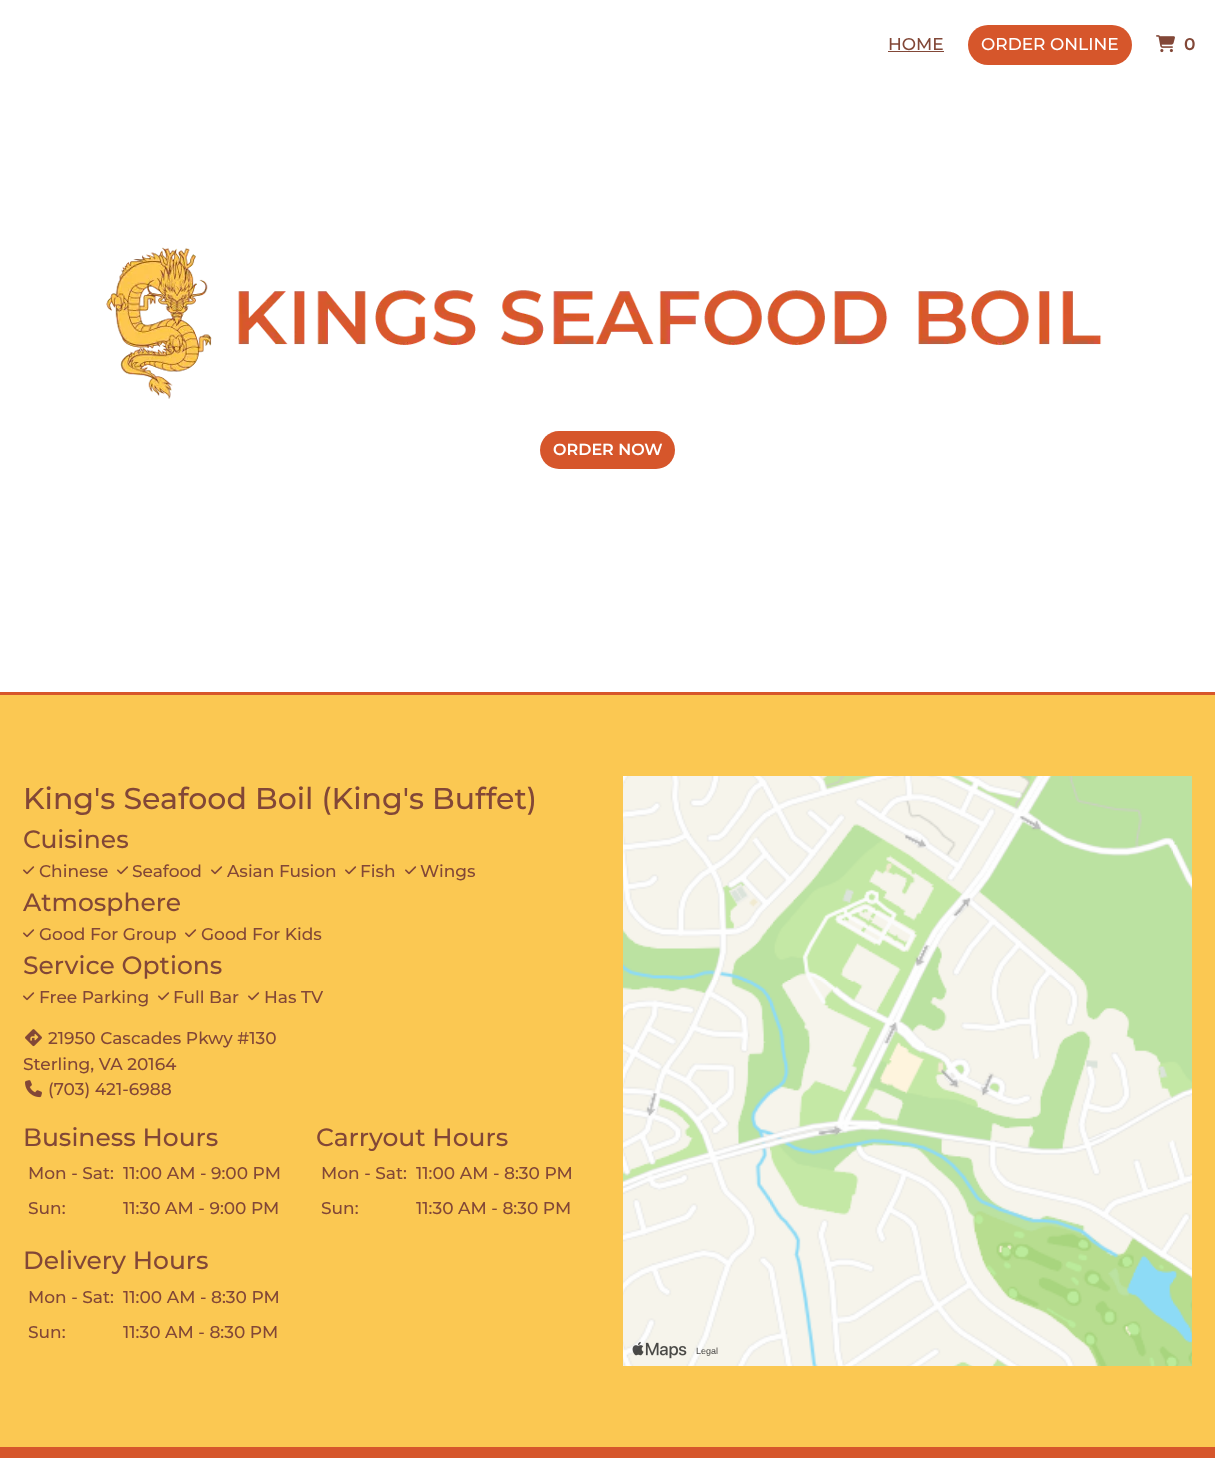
<!DOCTYPE html>
<meta charset="utf-8">
<style>body { margin: 0 } canvas { display: block }</style>
<canvas id="canvas" width="1215" height="1458"></canvas>
<img id="img1" src="img_01.png" hidden>
<img id="img2" src="img_02.png" hidden>
<img id="img3" src="img_03.png" hidden>
<img id="img4" src="img_04.png" hidden>
<img id="img5" src="img_05.png" hidden>
<img id="img6" src="img_06.png" hidden>
<img id="img7" src="img_07.png" hidden>
<script>
window.onload = function () {
	const canvas = document.getElementById("canvas");
	const ctx = canvas.getContext("2d");
	ctx.miterLimit = 4;
	ctx.fontKerning = "normal";
	function txt(s, x, y) {
		ctx.fillText(s, x, y);
	}
	function fill(x, y, w, h) {
		ctx.fillRect(x, y, w, h);
	}
	function round(x, y, w, h, r) {
		ctx.beginPath();
		ctx.roundRect(x, y, w, h, r);
		ctx.fill();
	}
	function img(id, x, y, w, h) {
		ctx.drawImage(document.getElementById(id), x, y, w, h);
	}

	ctx.fillStyle = "#FBC852";
	fill(0, 0, 1215, 1458);
	ctx.fillStyle = "#FFFFFF";
	fill(0, 0, 1215, 692);
	ctx.fillStyle = "#824737";
	fill(888, 51, 56, 1);
	ctx.fillStyle = "#D6562B";
	round(968, 25, 164, 40, 20);
	img("img1", 1156, 35, 19, 18);
	img("img2", 106, 247, 996, 152);
	round(540, 431, 135, 38, 19);
	fill(0, 692, 1215, 3);
	img("img3", 23, 866, 12, 9);
	img("img3", 117, 866, 12, 9);
	img("img3", 211, 866, 12, 9);
	img("img3", 345, 866, 12, 9);
	img("img3", 405, 866, 12, 9);
	img("img3", 23, 929, 12, 9);
	img("img3", 185, 929, 12, 9);
	img("img3", 23, 992, 12, 9);
	img("img3", 158, 992, 12, 9);
	img("img3", 248, 992, 12, 9);
	img("img4", 25, 1029, 17, 18);
	img("img5", 25, 1080, 17, 18);
	img("img6", 623, 776, 569, 590);
	img("img7", 632, 1341, 55, 18);
	fill(0, 1447, 1215, 11);
	ctx.font = "500 17px Montserrat";
	ctx.fillStyle = "#824737";
	txt("HOME", 888, 50);
	ctx.fillStyle = "#FFFFFF";
	txt("ORDER ONLINE", 981, 50);
	ctx.font = "600 17px Montserrat";
	ctx.fillStyle = "#824737";
	txt("0", 1184, 50);
	ctx.font = "600 16px Montserrat";
	ctx.fillStyle = "#FFFFFF";
	txt("ORDER NOW", 553, 455);
	ctx.font = "500 30px Montserrat";
	ctx.fillStyle = "#824737";
	txt("King's Seafood Boil (King's Buffet)", 23, 809);
	ctx.font = "500 25px Montserrat";
	txt("Cuisines", 23, 848);
	ctx.font = "500 17px Montserrat";
	txt("Chinese", 39, 877);
	txt("Seafood", 132, 877);
	txt("Asian Fusion", 227, 877);
	txt("Fish", 360, 877);
	txt("Wings", 420, 877);
	ctx.font = "500 25px Montserrat";
	txt("Atmosphere", 23, 911);
	ctx.font = "500 17px Montserrat";
	txt("Good For Group", 39, 940);
	txt("Good For Kids", 201, 940);
	ctx.font = "500 25px Montserrat";
	txt("Service Options", 23, 974);
	ctx.font = "500 17px Montserrat";
	txt("Free Parking", 39, 1003);
	txt("Full Bar", 173, 1003);
	txt("Has TV", 264, 1003);
	txt("21950 Cascades Pkwy #130", 48, 1044);
	txt("Sterling, VA 20164", 23, 1070);
	txt("(703) 421-6988", 48, 1095);
	ctx.font = "500 25px Montserrat";
	txt("Business Hours", 23, 1146);
	ctx.font = "500 17px Montserrat";
	txt("Mon - Sat:", 28, 1179);
	txt("11:00 AM - 9:00 PM", 123, 1179);
	txt("Sun:", 28, 1214);
	txt("11:30 AM - 9:00 PM", 123, 1214);
	ctx.font = "500 25px Montserrat";
	txt("Carryout Hours", 316, 1146);
	ctx.font = "500 17px Montserrat";
	txt("Mon - Sat:", 321, 1179);
	txt("11:00 AM - 8:30 PM", 416, 1179);
	txt("Sun:", 321, 1214);
	txt("11:30 AM - 8:30 PM", 416, 1214);
	ctx.font = "500 25px Montserrat";
	txt("Delivery Hours", 23, 1269);
	ctx.font = "500 17px Montserrat";
	txt("Mon - Sat:", 28, 1303);
	txt("11:00 AM - 8:30 PM", 123, 1303);
	txt("Sun:", 28, 1338);
	txt("11:30 AM - 8:30 PM", 123, 1338);
	ctx.font = "9px Liberation Sans";
	ctx.fillStyle = "#4A4947";
	txt("Legal", 696, 1354);
};
</script>
